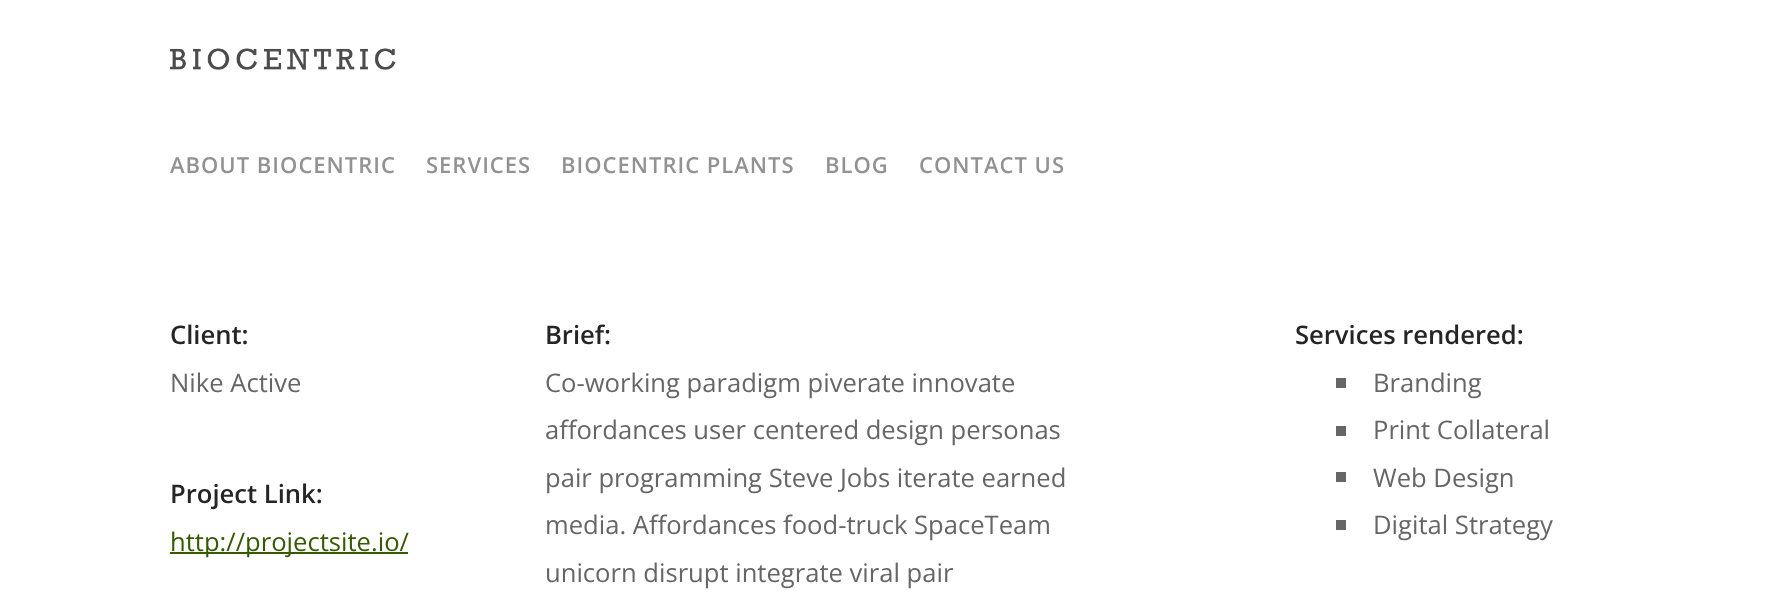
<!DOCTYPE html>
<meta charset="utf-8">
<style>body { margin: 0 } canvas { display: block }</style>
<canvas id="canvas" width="1779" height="610"></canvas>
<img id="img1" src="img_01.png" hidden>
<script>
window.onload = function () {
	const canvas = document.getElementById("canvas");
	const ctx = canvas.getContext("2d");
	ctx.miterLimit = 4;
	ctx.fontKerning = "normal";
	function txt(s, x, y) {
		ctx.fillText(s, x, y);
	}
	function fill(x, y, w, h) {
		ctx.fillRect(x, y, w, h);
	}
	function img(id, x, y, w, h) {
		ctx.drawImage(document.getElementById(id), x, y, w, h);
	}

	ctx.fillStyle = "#FFFFFF";
	fill(0, 0, 1779, 610);
	img("img1", 170, 48, 226, 22);
	ctx.fillStyle = "#355B00";
	fill(170, 552, 238, 2);
	ctx.fillStyle = "#666666";
	fill(1336, 378, 10, 10);
	fill(1336, 426, 10, 10);
	fill(1336, 472, 10, 10);
	fill(1336, 520, 10, 10);
	ctx.letterSpacing = "1px";
	ctx.font = "600 22px Open Sans";
	ctx.fillStyle = "#929292";
	txt("ABOUT BIOCENTRIC", 170, 173);
	txt("SERVICES", 426, 173);
	txt("BIOCENTRIC PLANTS", 561, 173);
	txt("BLOG", 825, 173);
	txt("CONTACT US", 919, 173);
	ctx.letterSpacing = "0px";
	ctx.font = "600 25.6px Open Sans";
	ctx.fillStyle = "#252525";
	txt("Client:", 170, 344);
	ctx.font = "25.6px Open Sans";
	ctx.fillStyle = "#666666";
	txt("Nike Active", 170, 392);
	ctx.font = "600 25.6px Open Sans";
	ctx.fillStyle = "#252525";
	txt("Project Link:", 170, 503);
	ctx.font = "25.6px Open Sans";
	ctx.fillStyle = "#355B00";
	txt("http://projectsite.io/", 170, 551);
	ctx.font = "600 25.6px Open Sans";
	ctx.fillStyle = "#252525";
	txt("Brief:", 545, 344);
	ctx.font = "25.6px Open Sans";
	ctx.fillStyle = "#666666";
	txt("Co-working paradigm piverate innovate", 545, 392);
	txt("affordances user centered design personas", 545, 439);
	txt("pair programming Steve Jobs iterate earned", 545, 487);
	txt("media. Affordances food-truck SpaceTeam", 545, 534);
	txt("unicorn disrupt integrate viral pair", 545, 582);
	ctx.font = "600 25.6px Open Sans";
	ctx.fillStyle = "#252525";
	txt("Services rendered:", 1295, 344);
	ctx.font = "25.6px Open Sans";
	ctx.fillStyle = "#666666";
	txt("Branding", 1373, 392);
	txt("Print Collateral", 1373, 439);
	txt("Web Design", 1373, 487);
	txt("Digital Strategy", 1373, 534);
};
</script>
